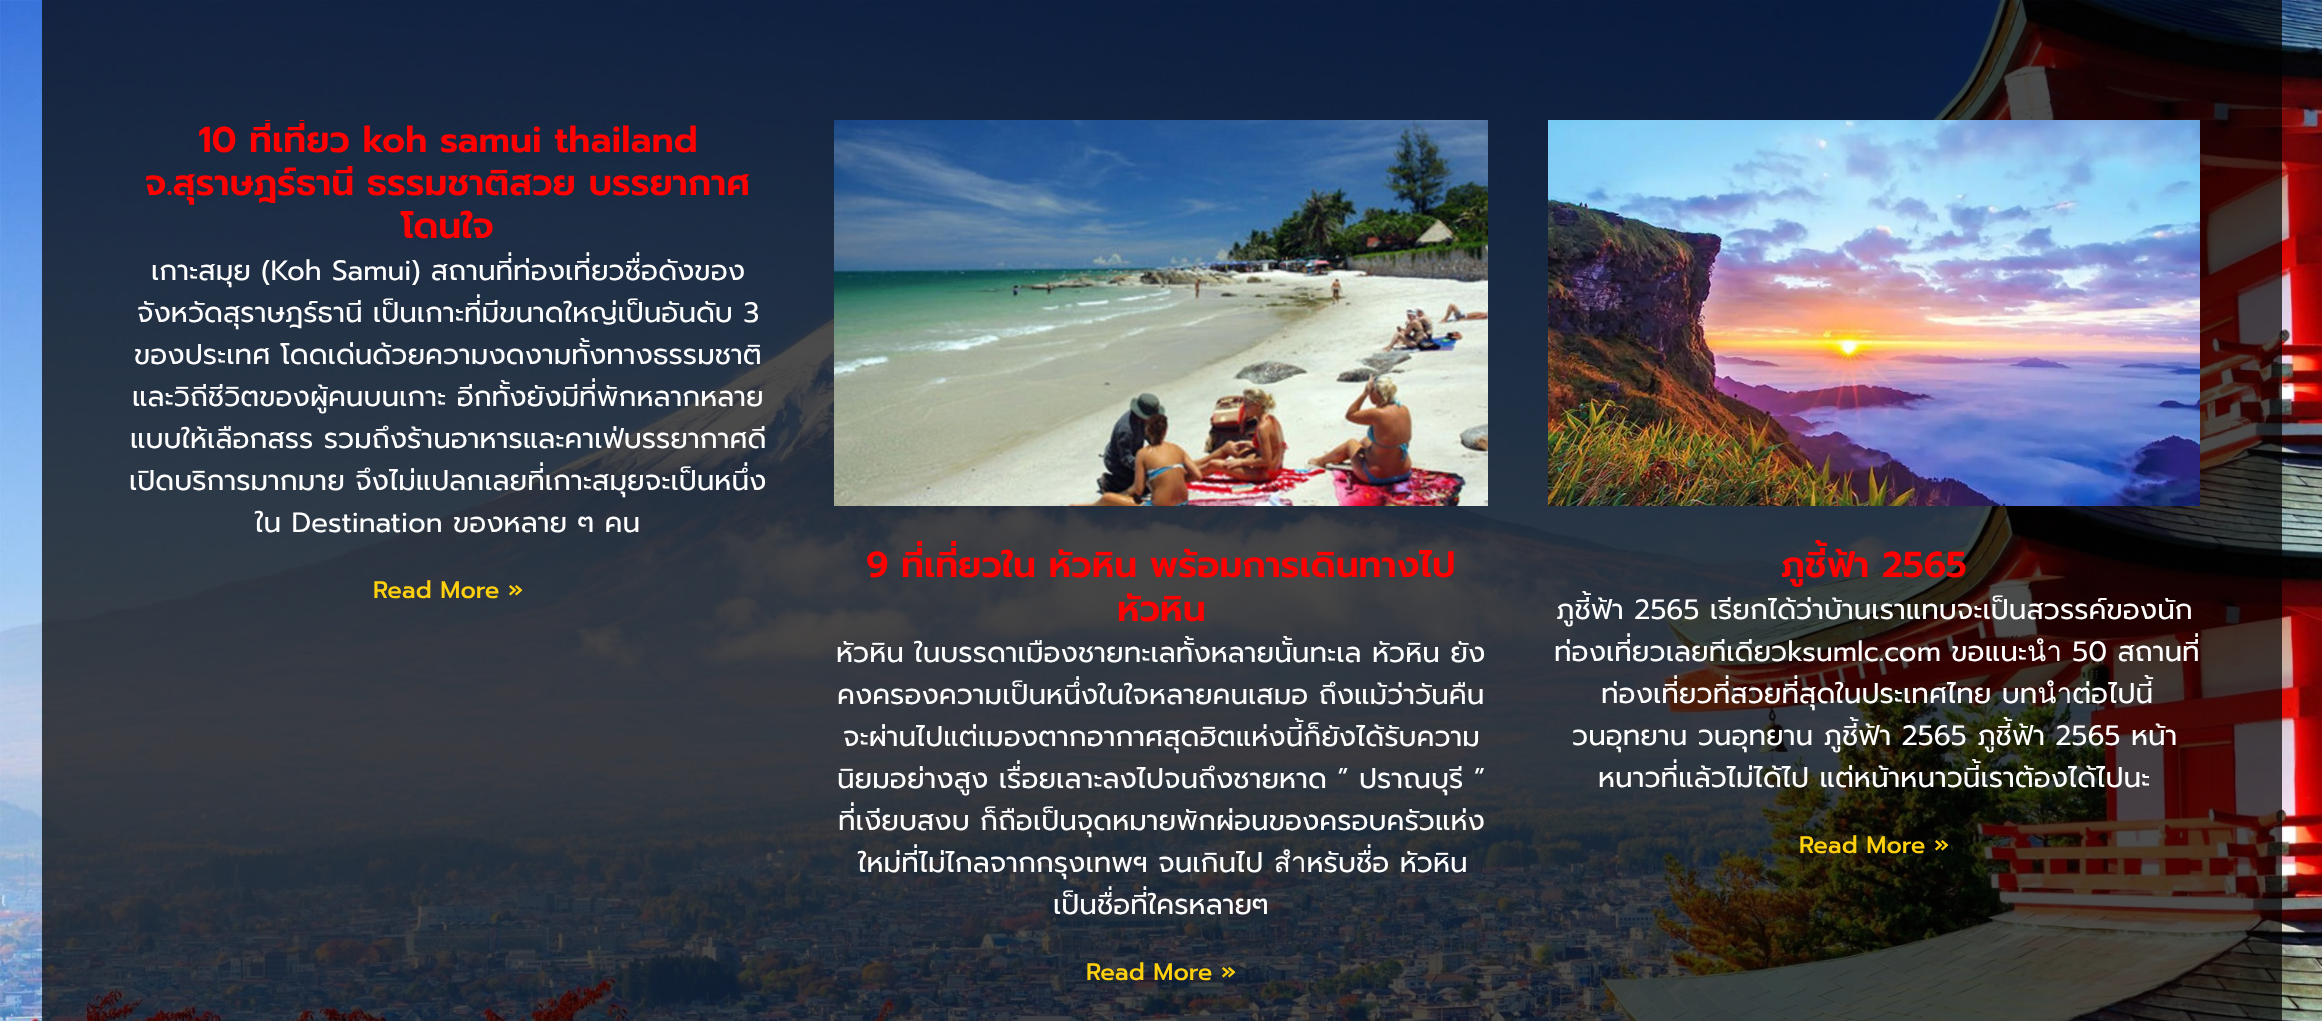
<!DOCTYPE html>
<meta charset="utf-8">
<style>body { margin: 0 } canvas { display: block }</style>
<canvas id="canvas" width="2322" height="1021"></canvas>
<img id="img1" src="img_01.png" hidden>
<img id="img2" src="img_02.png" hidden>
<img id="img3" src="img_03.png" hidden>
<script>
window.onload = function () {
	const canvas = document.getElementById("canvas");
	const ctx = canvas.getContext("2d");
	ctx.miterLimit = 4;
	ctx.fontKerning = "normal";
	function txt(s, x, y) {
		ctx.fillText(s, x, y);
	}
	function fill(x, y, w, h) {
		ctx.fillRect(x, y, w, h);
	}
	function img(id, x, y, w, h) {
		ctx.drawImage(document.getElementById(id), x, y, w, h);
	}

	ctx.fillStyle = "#FFFFFF";
	fill(0, 0, 2322, 1021);
	img("img1", 0, 0, 2322, 1021);
	img("img2", 834, 120, 654, 386);
	img("img3", 1548, 120, 652, 386);
	ctx.save();
	ctx.beginPath();
	ctx.rect(122, 120, 652, 874);
	ctx.clip();
	ctx.font = "600 36px Prompt";
	ctx.fillStyle = "#FF0000";
	txt("10 ที่เที่ยว koh samui thailand", 198, 152);
	ctx.restore();
	ctx.font = "600 36px Prompt";
	ctx.fillStyle = "#FF0000";
	txt("จ.สุราษฎร์ธานี ธรรมชาติสวย บรรยากาศ", 145, 195);
	txt("โดนใจ", 401, 238);
	ctx.font = "28px Prompt";
	ctx.fillStyle = "#FFFFFF";
	txt("เกาะสมุย (Koh Samui) สถานที่ท่องเที่ยวชื่อดังของ", 151, 280);
	txt("จังหวัดสุราษฎร์ธานี เป็นเกาะที่มีขนาดใหญ่เป็นอันดับ 3", 137, 322);
	txt("ของประเทศ โดดเด่นด้วยความงดงามทั้งทางธรรมชาติ", 134, 364);
	txt("และวิถีชีวิตของผู้คนบนเกาะ อีกทั้งยังมีที่พักหลากหลาย", 132, 406);
	txt("แบบให้เลือกสรร รวมถึงร้านอาหารและคาเฟ่บรรยากาศดี", 130, 448);
	ctx.save();
	ctx.beginPath();
	ctx.rect(122, 120, 652, 874);
	ctx.clip();
	txt("เปิดบริการมากมาย จึงไม่แปลกเลยที่เกาะสมุยจะเป็นหนึ่ง", 129, 490);
	ctx.restore();
	txt("ใน Destination ของหลาย ๆ คน", 255, 532);
	ctx.font = "500 24px Prompt";
	ctx.fillStyle = "#FFD00D";
	txt("Read More »", 373, 598);
	ctx.font = "600 36px Prompt";
	ctx.fillStyle = "#FF0000";
	txt("9 ที่เที่ยวใน หัวหิน พร้อมการเดินทางไป", 866, 577);
	txt("หัวหิน", 1117, 621);
	ctx.save();
	ctx.beginPath();
	ctx.rect(834, 120, 654, 874);
	ctx.clip();
	ctx.font = "28px Prompt";
	ctx.fillStyle = "#FFFFFF";
	txt("หัวหิน ในบรรดาเมืองชายทะเลทั้งหลายนั้นทะเล หัวหิน ยัง", 836, 662);
	ctx.restore();
	ctx.font = "28px Prompt";
	ctx.fillStyle = "#FFFFFF";
	txt("คงครองความเป็นหนึ่งในใจหลายคนเสมอ ถึงแม้ว่าวันคืน", 837, 704);
	txt("จะผ่านไปแต่เมองตากอากาศสุดฮิตแห่งนี้ก็ยังได้รับความ", 843, 746);
	ctx.save();
	ctx.beginPath();
	ctx.rect(834, 120, 654, 874);
	ctx.clip();
	txt("นิยมอย่างสูง เรื่อยเลาะลงไปจนถึงชายหาด ” ปราณบุรี ”", 837, 788);
	txt("ที่เงียบสงบ ก็ถือเป็นจุดหมายพักผ่อนของครอบครัวแห่ง", 838, 830);
	ctx.restore();
	txt("ใหม่ที่ไม่ไกลจากกรุงเทพฯ จนเกินไป สำหรับชื่อ หัวหิน", 858, 872);
	txt("เป็นชื่อที่ใครหลายๆ", 1053, 914);
	ctx.font = "500 24px Prompt";
	ctx.fillStyle = "#FFD00D";
	txt("Read More »", 1086, 980);
	ctx.font = "600 36px Prompt";
	ctx.fillStyle = "#FF0000";
	txt("ภูชี้ฟ้า 2565", 1781, 577);
	ctx.save();
	ctx.beginPath();
	ctx.rect(1548, 120, 652, 874);
	ctx.clip();
	ctx.font = "28px Prompt";
	ctx.fillStyle = "#FFFFFF";
	txt("ภูชี้ฟ้า 2565 เรียกได้ว่าบ้านเราแทบจะเป็นสวรรค์ของนัก", 1556, 619);
	ctx.restore();
	ctx.font = "28px Prompt";
	ctx.fillStyle = "#FFFFFF";
	txt("ท่องเที่ยวเลยทีเดียวksumlc.com ขอแนะนำ 50 สถานที่", 1554, 661);
	txt("ท่องเที่ยวที่สวยที่สุดในประเทศไทย บทนำต่อไปนี้", 1601, 703);
	txt("วนอุทยาน วนอุทยาน ภูชี้ฟ้า 2565 ภูชี้ฟ้า 2565 หน้า", 1572, 745);
	txt("หนาวที่แล้วไม่ได้ไป แต่หน้าหนาวนี้เราต้องได้ไปนะ", 1598, 787);
	ctx.font = "500 24px Prompt";
	ctx.fillStyle = "#FFD00D";
	txt("Read More »", 1799, 853);
};
</script>
